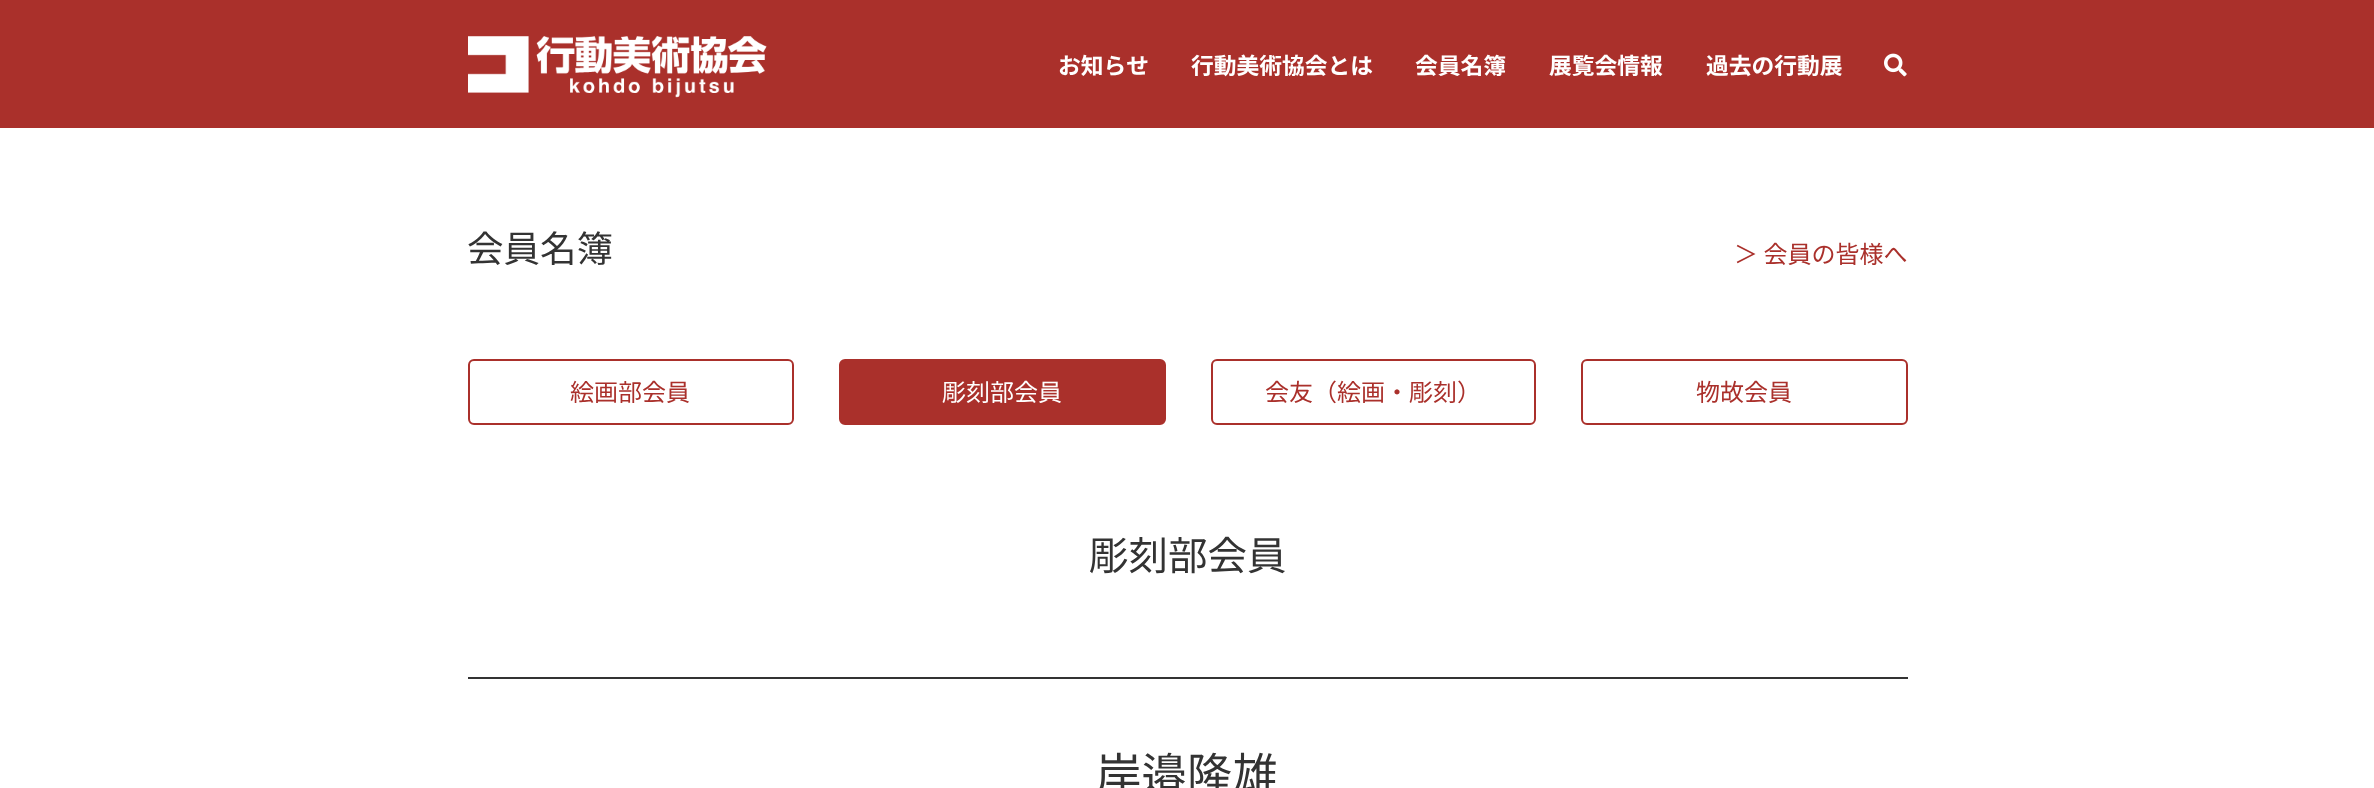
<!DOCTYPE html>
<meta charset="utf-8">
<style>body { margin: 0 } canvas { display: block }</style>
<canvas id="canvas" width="2374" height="788"></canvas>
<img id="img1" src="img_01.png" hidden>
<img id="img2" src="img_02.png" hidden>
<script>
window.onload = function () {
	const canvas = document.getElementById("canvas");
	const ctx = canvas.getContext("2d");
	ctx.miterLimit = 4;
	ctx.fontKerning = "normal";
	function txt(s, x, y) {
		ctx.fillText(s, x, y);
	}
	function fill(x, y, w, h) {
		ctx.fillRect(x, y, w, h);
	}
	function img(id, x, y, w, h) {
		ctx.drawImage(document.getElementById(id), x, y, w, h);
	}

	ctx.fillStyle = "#FFFFFF";
	fill(0, 0, 2374, 788);
	ctx.fillStyle = "#AA302B";
	fill(0, 0, 2374, 128);
	img("img1", 468, 36, 299, 62);
	img("img2", 1884, 53, 23, 24);
	ctx.beginPath();
	ctx.roundRect(469, 360, 324, 64, 5);
	ctx.strokeStyle = "#AA302B";
	ctx.lineWidth = 2;
	ctx.stroke();
	ctx.beginPath();
	ctx.roundRect(840, 360, 325, 64, 5);
	ctx.fill();
	ctx.stroke();
	ctx.beginPath();
	ctx.roundRect(1212, 360, 323, 64, 5);
	ctx.stroke();
	ctx.beginPath();
	ctx.roundRect(1582, 360, 325, 64, 5);
	ctx.stroke();
	ctx.fillStyle = "#333333";
	fill(468, 677, 1440, 2);
	ctx.font = "bold 22.75px Noto Sans JP";
	ctx.fillStyle = "#FFFFFF";
	txt("お知らせ", 1058, 74);
	txt("行動美術協会とは", 1191, 74);
	txt("会員名簿", 1415, 74);
	txt("展覧会情報", 1549, 74);
	txt("過去の行動展", 1706, 74);
	ctx.font = "36.5px Noto Sans JP";
	ctx.fillStyle = "#333333";
	txt("会員名簿", 467, 262);
	ctx.font = "24px Noto Sans JP";
	ctx.fillStyle = "#AA302B";
	txt("＞ 会員の皆様へ", 1734, 263);
	txt("絵画部会員", 570, 401);
	ctx.fillStyle = "#FFFFFF";
	txt("彫刻部会員", 942, 401);
	ctx.fillStyle = "#AA302B";
	txt("会友（絵画・彫刻）", 1265, 401);
	txt("物故会員", 1696, 401);
	ctx.font = "39.5px Noto Sans JP";
	ctx.fillStyle = "#333333";
	txt("彫刻部会員", 1089, 570);
	ctx.font = "45.5px Noto Sans JP";
	txt("岸邉隆雄", 1096, 791);
};
</script>
